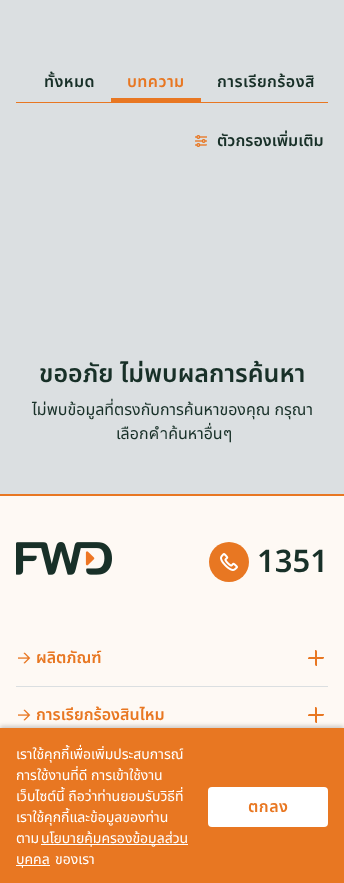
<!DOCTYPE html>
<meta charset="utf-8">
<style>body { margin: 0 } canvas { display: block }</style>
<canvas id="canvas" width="344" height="883"></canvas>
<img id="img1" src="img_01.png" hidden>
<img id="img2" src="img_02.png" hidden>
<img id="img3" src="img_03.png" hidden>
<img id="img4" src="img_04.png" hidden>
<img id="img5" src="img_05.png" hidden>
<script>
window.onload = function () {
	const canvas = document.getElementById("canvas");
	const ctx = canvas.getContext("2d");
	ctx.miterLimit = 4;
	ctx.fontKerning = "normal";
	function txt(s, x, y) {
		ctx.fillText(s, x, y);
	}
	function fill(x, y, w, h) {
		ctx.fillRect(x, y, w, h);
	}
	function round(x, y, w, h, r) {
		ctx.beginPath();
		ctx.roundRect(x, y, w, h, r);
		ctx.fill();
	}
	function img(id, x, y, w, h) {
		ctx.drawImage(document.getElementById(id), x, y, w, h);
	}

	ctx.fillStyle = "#DBDFE1";
	fill(0, 0, 344, 883);
	ctx.fillStyle = "#E87722";
	fill(16, 102, 312, 1);
	fill(111, 98, 90, 4);
	img("img1", 195, 135, 12, 12);
	ctx.fillStyle = "#FEF9F4";
	fill(0, 496, 344, 232);
	ctx.fillStyle = "#E87722";
	fill(0, 494, 344, 2);
	img("img2", 16, 542, 96, 33);
	ctx.beginPath();
	ctx.arc(229, 562, 20, 0, Math.PI * 2);
	ctx.fill();
	img("img3", 220, 553, 18, 18);
	ctx.fillStyle = "#DBDFE1";
	fill(16, 686, 312, 1);
	img("img4", 18, 652, 13, 12);
	img("img5", 308, 650, 16, 16);
	img("img4", 18, 709, 13, 12);
	img("img5", 308, 707, 16, 16);
	ctx.fillStyle = "rgba(0, 0, 0, 0.2)";
	ctx.filter = "blur(2px)";
	ctx.beginPath();
	ctx.rect(0, 726, 344, 155);
	ctx.fill();
	ctx.filter = "none";
	ctx.fillStyle = "#E87722";
	fill(0, 728, 344, 155);
	ctx.fillStyle = "#FFFFFF";
	fill(41, 844, 147, 1);
	fill(16, 865, 34, 1);
	round(208, 787, 120, 40, 4);
	ctx.letterSpacing = "0.4px";
	ctx.font = "600 16px Noto Sans Thai";
	ctx.fillStyle = "#183028";
	txt("ทั้งหมด", 44, 87);
	ctx.fillStyle = "#E87722";
	txt("บทความ", 127, 87);
	ctx.fillStyle = "#183028";
	txt("การเรียกร้องสิ", 217, 87);
	ctx.letterSpacing = "0px";
	txt("ตัวกรองเพิ่มเติม", 217, 146);
	ctx.font = "600 25px Noto Sans Thai";
	txt("ขออภัย ไม่พบผลการค้นหา", 39, 382);
	ctx.font = "16px Noto Sans Thai";
	txt("ไม่พบข้อมูลที่ตรงกับการค้นหาของคุณ กรุณา", 32, 415);
	txt("เลือกคำค้นหาอื่นๆ", 116, 439);
	ctx.font = "600 31px Noto Sans";
	txt("1351", 257, 572);
	ctx.font = "600 16px Noto Sans Thai";
	ctx.fillStyle = "#E87722";
	txt("ผลิตภัณฑ์", 36, 663);
	txt("การเรียกร้องสินไหม", 36, 720);
	ctx.font = "14px Noto Sans Thai";
	ctx.fillStyle = "#FFFFFF";
	txt("เราใช้คุกกี้เพื่อเพิ่มประสบการณ์", 16, 759);
	txt("การใช้งานที่ดี การเข้าใช้งาน", 16, 780);
	txt("เว็บไซต์นี้ ถือว่าท่านยอมรับวิธีที่", 16, 801);
	txt("เราใช้คุกกี้และข้อมูลของท่าน", 16, 822);
	txt("ตาม", 16, 843);
	txt("นโยบายคุ้มครองข้อมูลส่วน", 41, 843);
	txt("บุคคล", 16, 864);
	txt("ของเรา", 55, 864);
	ctx.letterSpacing = "0.5px";
	ctx.font = "600 16px Noto Sans Thai";
	ctx.fillStyle = "#E87722";
	txt("ตกลง", 248, 812);
};
</script>
